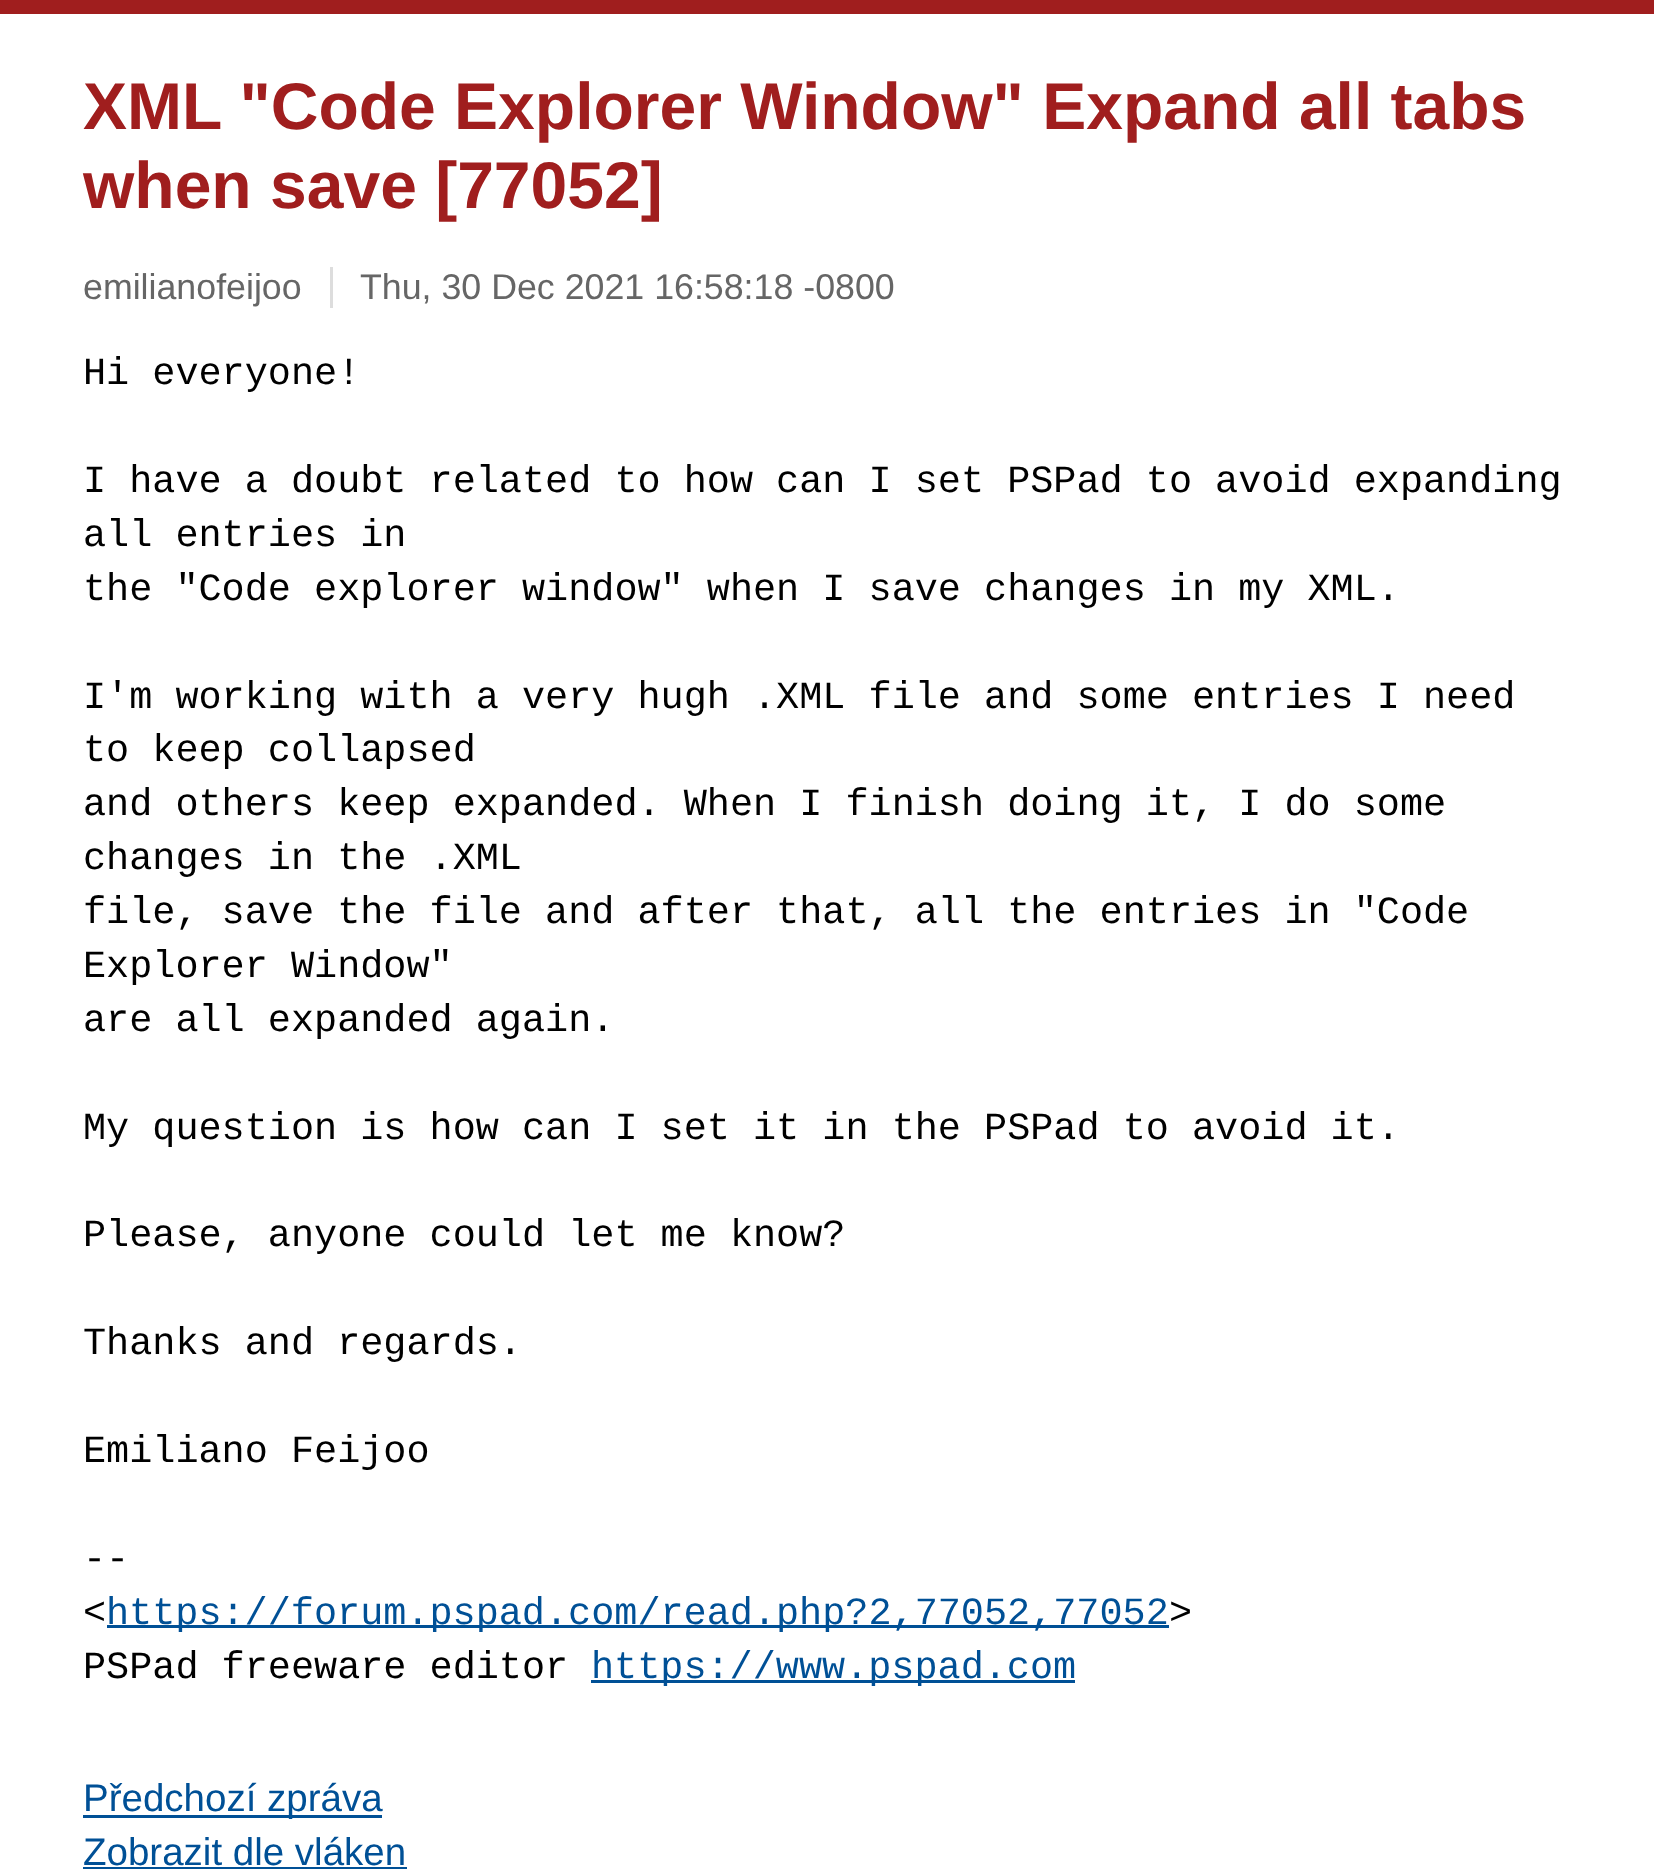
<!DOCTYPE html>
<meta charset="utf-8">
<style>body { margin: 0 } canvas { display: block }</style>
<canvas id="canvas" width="1654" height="1869"></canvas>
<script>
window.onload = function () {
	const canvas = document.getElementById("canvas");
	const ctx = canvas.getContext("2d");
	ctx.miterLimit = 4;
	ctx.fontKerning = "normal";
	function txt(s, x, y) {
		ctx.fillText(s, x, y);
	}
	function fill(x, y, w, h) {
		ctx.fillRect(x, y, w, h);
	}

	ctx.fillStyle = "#FFFFFF";
	fill(0, 0, 1654, 1869);
	ctx.fillStyle = "#A01E1E";
	fill(0, 0, 1654, 14);
	ctx.fillStyle = "#DDDDDD";
	fill(330, 267, 3, 41);
	ctx.fillStyle = "#005096";
	fill(107, 1625, 1062, 3);
	fill(591, 1680, 484, 3);
	fill(83, 1815, 299, 3);
	fill(83, 1867, 324, 2);
	ctx.font = "bold 66px Liberation Sans";
	ctx.fillStyle = "#A01E1E";
	txt("XML \"Code Explorer Window\" Expand all tabs", 83, 129);
	txt("when save [77052]", 83, 208);
	ctx.font = "35.75px Liberation Sans";
	ctx.fillStyle = "#666666";
	txt("emilianofeijoo", 83, 299);
	txt("Thu, 30 Dec 2021 16:58:18 -0800", 360, 299);
	ctx.font = "38.5px Liberation Mono";
	ctx.fillStyle = "#000000";
	txt("Hi everyone!", 83, 384);
	txt("I have a doubt related to how can I set PSPad to avoid expanding", 83, 492);
	txt("all entries in", 83, 546);
	txt("the \"Code explorer window\" when I save changes in my XML.", 83, 600);
	txt("I'm working with a very hugh .XML file and some entries I need", 83, 708);
	txt("to keep collapsed", 83, 761);
	txt("and others keep expanded. When I finish doing it, I do some", 83, 815);
	txt("changes in the .XML", 83, 869);
	txt("file, save the file and after that, all the entries in \"Code", 83, 923);
	txt("Explorer Window\"", 83, 977);
	txt("are all expanded again.", 83, 1031);
	txt("My question is how can I set it in the PSPad to avoid it.", 83, 1139);
	txt("Please, anyone could let me know?", 83, 1246);
	txt("Thanks and regards.", 83, 1354);
	txt("Emiliano Feijoo", 83, 1462);
	txt("--", 83, 1570);
	txt("<", 83, 1624);
	ctx.fillStyle = "#005096";
	txt("https://forum.pspad.com/read.php?2,77052,77052", 106, 1624);
	ctx.fillStyle = "#000000";
	txt(">", 1169, 1624);
	txt("PSPad freeware editor", 83, 1678);
	ctx.fillStyle = "#005096";
	txt("https://www.pspad.com", 591, 1678);
	ctx.font = "38.5px Liberation Sans";
	txt("Předchozí zpráva", 83, 1811);
	txt("Zobrazit dle vláken", 83, 1865);
};
</script>
